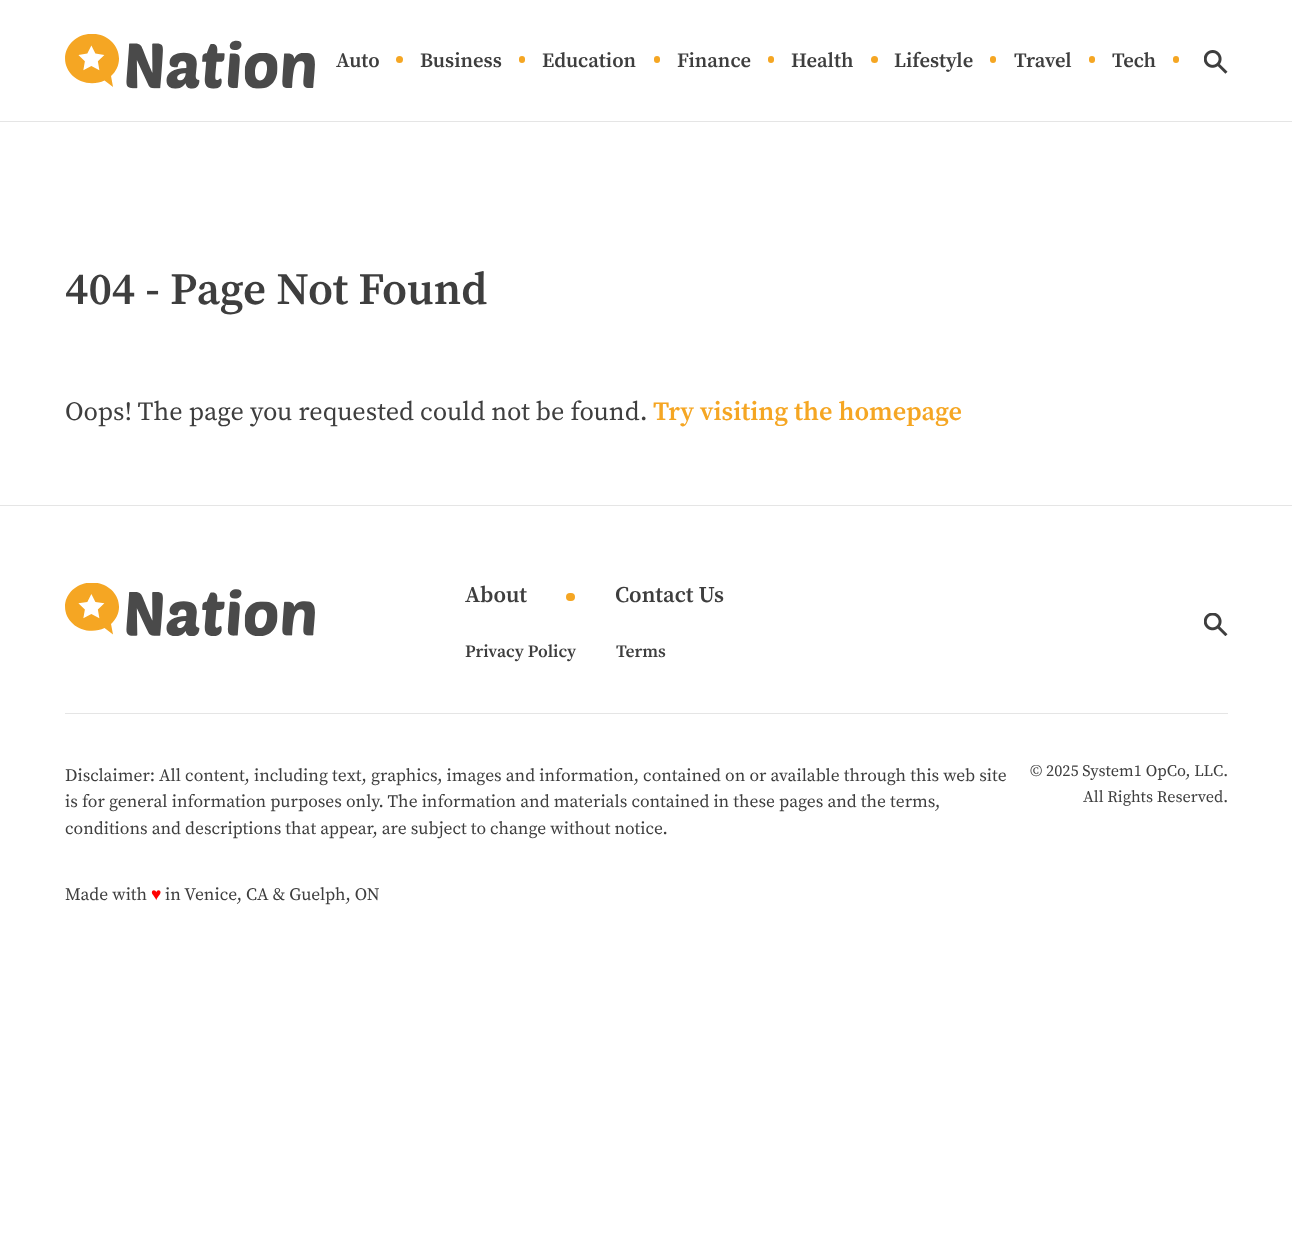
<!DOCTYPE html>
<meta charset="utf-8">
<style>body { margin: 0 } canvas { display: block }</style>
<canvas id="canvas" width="1292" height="1246"></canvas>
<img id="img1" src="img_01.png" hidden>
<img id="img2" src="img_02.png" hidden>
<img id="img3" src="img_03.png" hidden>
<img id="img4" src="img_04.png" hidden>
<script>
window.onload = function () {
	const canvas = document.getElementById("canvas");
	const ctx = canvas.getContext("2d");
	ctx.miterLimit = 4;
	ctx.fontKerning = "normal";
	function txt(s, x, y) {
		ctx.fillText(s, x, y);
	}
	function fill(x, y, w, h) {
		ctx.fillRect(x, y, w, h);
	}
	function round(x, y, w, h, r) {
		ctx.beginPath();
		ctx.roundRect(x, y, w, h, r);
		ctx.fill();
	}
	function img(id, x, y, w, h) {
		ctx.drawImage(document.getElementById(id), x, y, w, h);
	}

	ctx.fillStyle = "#FFFFFF";
	fill(0, 0, 1292, 1246);
	ctx.fillStyle = "#E5E5E5";
	fill(0, 121, 1292, 1);
	img("img1", 65, 34, 250, 55);
	ctx.fillStyle = "#F5A623";
	ctx.beginPath();
	ctx.arc(399.5, 59.5, 3.5, 0, Math.PI * 2);
	ctx.fill();
	round(519, 56, 6, 7, 3);
	round(654, 56, 6, 7, 3);
	round(768, 56, 6, 7, 3);
	ctx.beginPath();
	ctx.arc(874.5, 59.5, 3.5, 0, Math.PI * 2);
	ctx.fill();
	round(990, 56, 6, 7, 3);
	round(1089, 56, 6, 7, 3);
	round(1173, 56, 6, 7, 3);
	img("img2", 1204, 50, 24, 24);
	ctx.fillStyle = "#E5E5E5";
	fill(0, 505, 1292, 1);
	img("img3", 65, 583, 250, 53);
	ctx.fillStyle = "#F5A623";
	round(566, 593, 9, 8, 4);
	img("img4", 1204, 613, 24, 23);
	ctx.fillStyle = "#E5E5E5";
	fill(65, 713, 1163, 1);
	ctx.font = "600 20.5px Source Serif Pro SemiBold";
	ctx.fillStyle = "#3E3E3E";
	txt("Auto", 336, 67);
	txt("Business", 420, 67);
	txt("Education", 542, 67);
	txt("Finance", 677, 67);
	txt("Health", 791, 67);
	txt("Lifestyle", 894, 67);
	txt("Travel", 1014, 67);
	txt("Tech", 1112, 67);
	ctx.font = "600 45px Source Serif Pro SemiBold";
	txt("404 - Page Not Found", 65, 304);
	ctx.font = "26.25px Source Serif Pro";
	txt("Oops! The page you requested could not be found.", 65, 420);
	ctx.font = "600 26.25px Source Serif Pro SemiBold";
	ctx.fillStyle = "#F5A623";
	txt("Try visiting the homepage", 653, 420);
	ctx.font = "600 22.5px Source Serif Pro SemiBold";
	ctx.fillStyle = "#3E3E3E";
	txt("About", 465, 602);
	txt("Contact Us", 615, 602);
	ctx.font = "600 17.5px Source Serif Pro SemiBold";
	txt("Privacy Policy", 465, 657);
	txt("Terms", 616, 657);
	ctx.font = "17.5px Source Serif Pro";
	txt("Disclaimer: All content, including text, graphics, images and information, contained on or available through this web site", 65, 781);
	txt("is for general information purposes only. The information and materials contained in these pages and the terms,", 65, 807);
	txt("conditions and descriptions that appear, are subject to change without notice.", 65, 834);
	txt("Made with", 65, 900);
	ctx.font = "17.5px Liberation Serif";
	ctx.fillStyle = "#FF0000";
	txt("♥", 151, 900);
	ctx.font = "17.5px Source Serif Pro";
	ctx.fillStyle = "#3E3E3E";
	txt("in Venice, CA & Guelph, ON", 165, 900);
	ctx.font = "16.25px Source Serif Pro";
	txt("© 2025 System1 OpCo, LLC.", 1030, 776);
	txt("All Rights Reserved.", 1083, 802);
};
</script>
